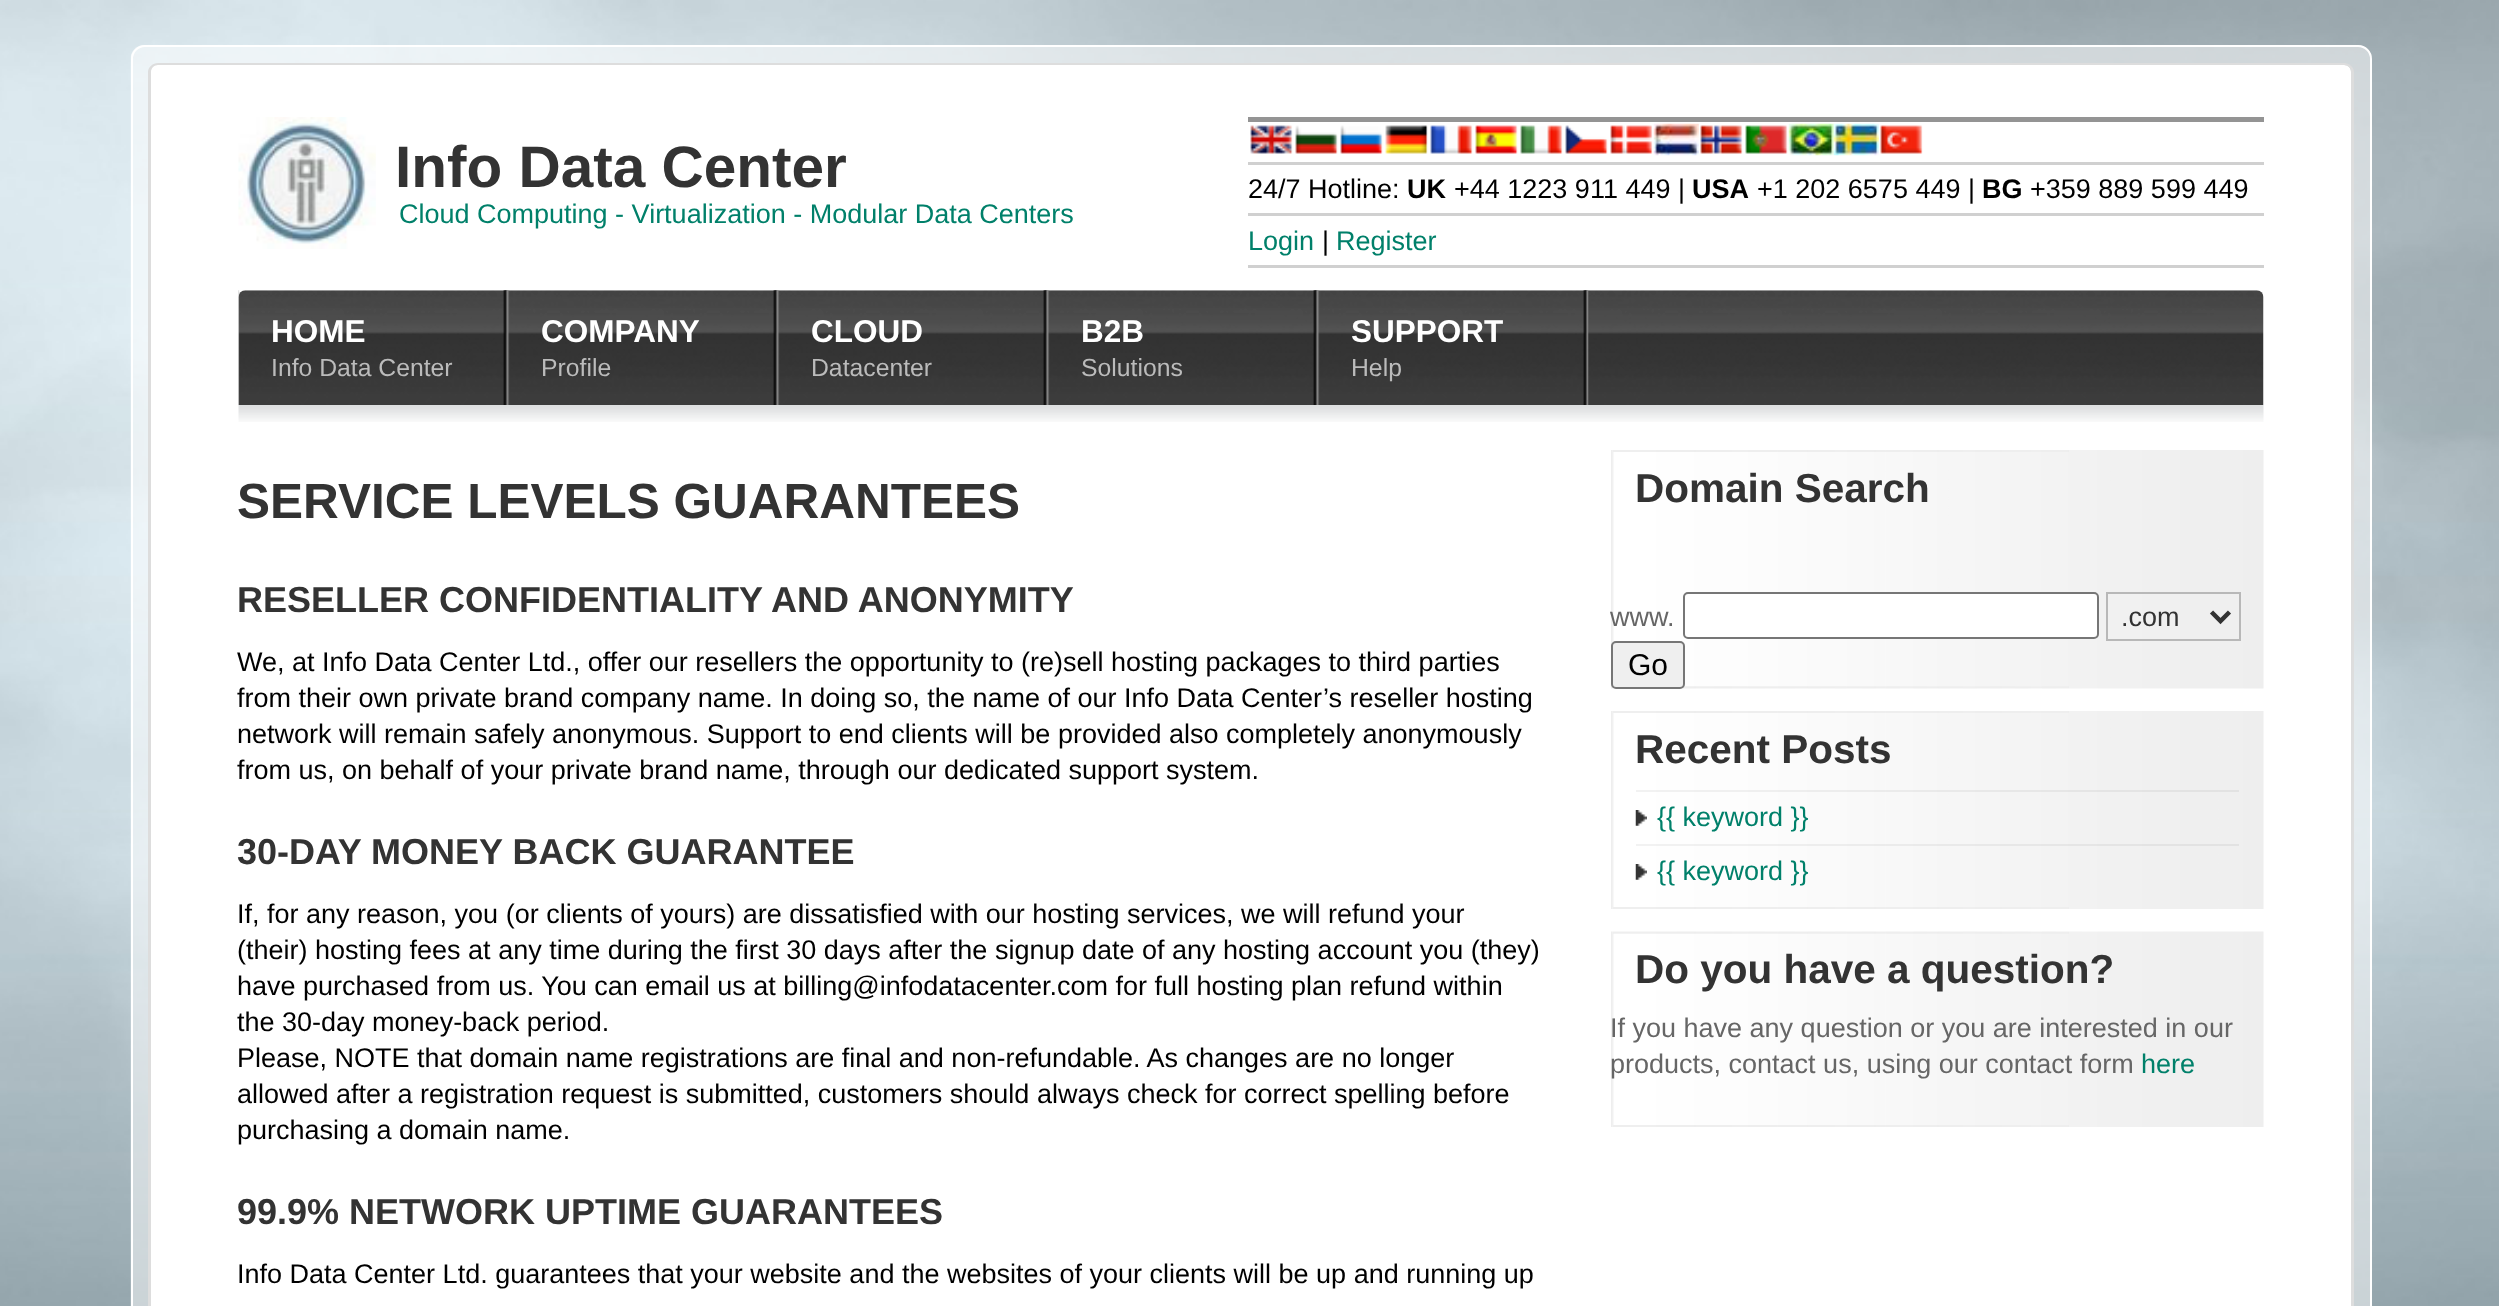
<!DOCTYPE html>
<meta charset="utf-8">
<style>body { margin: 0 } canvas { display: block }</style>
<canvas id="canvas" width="2499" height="1306"></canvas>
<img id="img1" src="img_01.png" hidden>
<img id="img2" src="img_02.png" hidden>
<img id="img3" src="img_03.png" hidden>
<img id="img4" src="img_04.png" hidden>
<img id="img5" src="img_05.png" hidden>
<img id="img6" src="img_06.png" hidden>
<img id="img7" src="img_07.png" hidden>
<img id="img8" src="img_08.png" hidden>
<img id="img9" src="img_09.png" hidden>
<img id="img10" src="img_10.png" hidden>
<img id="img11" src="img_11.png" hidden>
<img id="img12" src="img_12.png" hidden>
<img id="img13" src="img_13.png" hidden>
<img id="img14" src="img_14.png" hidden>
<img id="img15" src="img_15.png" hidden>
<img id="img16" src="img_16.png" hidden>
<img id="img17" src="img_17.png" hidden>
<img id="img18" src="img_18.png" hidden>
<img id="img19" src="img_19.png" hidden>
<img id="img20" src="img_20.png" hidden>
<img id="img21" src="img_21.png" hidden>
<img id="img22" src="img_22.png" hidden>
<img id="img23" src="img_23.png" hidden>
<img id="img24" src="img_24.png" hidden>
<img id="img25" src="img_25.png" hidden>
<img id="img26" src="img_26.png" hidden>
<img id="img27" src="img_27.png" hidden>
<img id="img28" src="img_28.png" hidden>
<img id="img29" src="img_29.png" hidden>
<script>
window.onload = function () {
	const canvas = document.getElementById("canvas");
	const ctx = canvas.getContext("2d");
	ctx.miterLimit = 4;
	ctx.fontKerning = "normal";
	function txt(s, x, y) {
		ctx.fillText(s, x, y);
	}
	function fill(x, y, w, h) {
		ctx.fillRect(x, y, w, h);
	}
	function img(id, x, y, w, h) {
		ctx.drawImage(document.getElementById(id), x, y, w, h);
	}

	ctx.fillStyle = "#FFFFFF";
	fill(0, 0, 2499, 1306);
	img("img1", 0, 0, 2499, 1306);
	img("img2", 130, 45, 2242, 1261);
	ctx.beginPath();
	ctx.roundRect(132, 46, 2239, 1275, 13);
	ctx.strokeStyle = "#FFFFFF";
	ctx.lineWidth = 2;
	ctx.stroke();
	ctx.beginPath();
	ctx.moveTo(158, 65);
	ctx.lineTo(2344, 65);
	ctx.bezierCurveTo(2348, 65, 2351, 68, 2351, 72);
	ctx.lineTo(2351, 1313);
	ctx.lineTo(151, 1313);
	ctx.lineTo(151, 72);
	ctx.bezierCurveTo(151, 68, 154, 65, 158, 65);
	ctx.closePath();
	ctx.fill();
	ctx.fillStyle = "#DDDDDD";
	ctx.beginPath();
	ctx.moveTo(158, 63);
	ctx.lineTo(2344, 63);
	ctx.bezierCurveTo(2349, 63, 2354, 67, 2354, 72);
	ctx.lineTo(2354, 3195);
	ctx.lineTo(148, 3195);
	ctx.lineTo(148, 72);
	ctx.bezierCurveTo(148, 67, 153, 63, 158, 63);
	ctx.closePath();
	ctx.moveTo(158, 65);
	ctx.lineTo(2344, 65);
	ctx.bezierCurveTo(2348, 65, 2351, 68, 2351, 72);
	ctx.lineTo(2351, 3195);
	ctx.lineTo(151, 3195);
	ctx.lineTo(151, 72);
	ctx.bezierCurveTo(151, 68, 154, 65, 158, 65);
	ctx.closePath();
	ctx.fill("evenodd");
	img("img3", 238, 117, 138, 132);
	ctx.fillStyle = "#949494";
	fill(1248, 117, 1016, 5);
	ctx.fillStyle = "#D0D0D0";
	fill(1248, 162, 1016, 3);
	img("img4", 1250, 125, 43, 29);
	img("img5", 1295, 125, 43, 29);
	img("img6", 1340, 125, 43, 29);
	img("img7", 1385, 125, 43, 29);
	img("img8", 1430, 125, 43, 29);
	img("img9", 1475, 125, 43, 29);
	img("img10", 1520, 125, 43, 29);
	img("img11", 1565, 125, 43, 29);
	img("img12", 1610, 125, 43, 29);
	img("img13", 1653, 123, 46, 33);
	img("img14", 1700, 125, 43, 29);
	img("img15", 1745, 125, 43, 29);
	img("img16", 1788, 123, 46, 33);
	img("img17", 1833, 123, 46, 33);
	img("img18", 1880, 125, 43, 29);
	fill(1248, 213, 1016, 3);
	fill(1248, 265, 1016, 3);
	img("img19", 238, 405, 2026, 17);
	img("img20", 238, 290, 2026, 115);
	img("img21", 238, 290, 1351, 115);
	img("img22", 1611, 450, 653, 239);
	img("img23", 1613, 450, 456, 2);
	img("img24", 1613, 686, 456, 3);
	ctx.fillStyle = "#FFFFFF";
	ctx.beginPath();
	ctx.roundRect(1684, 593, 414, 45, 4);
	ctx.fill();
	ctx.strokeStyle = "#767676";
	ctx.stroke();
	ctx.strokeStyle = "#B8B8B8";
	ctx.strokeRect(2107, 593, 133, 47);
	ctx.beginPath();
	ctx.moveTo(2211.5, 612);
	ctx.lineTo(2220.5, 621);
	ctx.lineTo(2229.5, 612);
	ctx.strokeStyle = "#333333";
	ctx.lineWidth = 4.5;
	ctx.stroke();
	ctx.fillStyle = "#EFEFEF";
	ctx.beginPath();
	ctx.roundRect(1612, 642, 72, 46, 4);
	ctx.fill();
	ctx.strokeStyle = "#767676";
	ctx.lineWidth = 2;
	ctx.stroke();
	img("img25", 1611, 711, 653, 198);
	img("img26", 1613, 711, 456, 2);
	img("img26", 1613, 907, 456, 2);
	ctx.fillStyle = "rgba(0, 0, 0, 0.05)";
	fill(1636, 790, 603, 2);
	img("img27", 1635, 810, 12, 16);
	fill(1636, 844, 603, 2);
	img("img27", 1635, 864, 12, 16);
	img("img28", 1611, 931, 653, 196);
	img("img29", 1613, 931, 456, 3);
	img("img26", 1613, 1125, 456, 2);
	ctx.font = "bold 58.5px Liberation Sans";
	ctx.fillStyle = "#333333";
	txt("Info Data Center", 395, 187);
	ctx.font = "27px Liberation Sans";
	ctx.fillStyle = "#00806A";
	txt("Cloud Computing - Virtualization - Modular Data Centers", 399, 223);
	ctx.fillStyle = "#000000";
	txt("24/7 Hotline:", 1248, 198);
	ctx.font = "bold 27px Liberation Sans";
	txt("UK", 1407, 198);
	ctx.font = "27px Liberation Sans";
	txt("+44 1223 911 449 |", 1454, 198);
	ctx.font = "bold 27px Liberation Sans";
	txt("USA", 1692, 198);
	ctx.font = "27px Liberation Sans";
	txt("+1 202 6575 449 |", 1757, 198);
	ctx.font = "bold 27px Liberation Sans";
	txt("BG", 1982, 198);
	ctx.font = "27px Liberation Sans";
	txt("+359 889 599 449", 2030, 198);
	ctx.fillStyle = "#00806A";
	txt("Login", 1248, 250);
	ctx.fillStyle = "#000000";
	txt("|", 1322, 250);
	ctx.fillStyle = "#00806A";
	txt("Register", 1336, 250);
	ctx.font = "bold 31.5px Liberation Sans";
	ctx.fillStyle = "#FFFFFF";
	txt("HOME", 271, 342);
	ctx.font = "24.75px Liberation Sans";
	ctx.fillStyle = "#BBBBBB";
	txt("Info Data Center", 271, 376);
	ctx.font = "bold 31.5px Liberation Sans";
	ctx.fillStyle = "#FFFFFF";
	txt("COMPANY", 541, 342);
	ctx.font = "24.75px Liberation Sans";
	ctx.fillStyle = "#BBBBBB";
	txt("Profile", 541, 376);
	ctx.font = "bold 31.5px Liberation Sans";
	ctx.fillStyle = "#FFFFFF";
	txt("CLOUD", 811, 342);
	ctx.font = "24.75px Liberation Sans";
	ctx.fillStyle = "#BBBBBB";
	txt("Datacenter", 811, 376);
	ctx.font = "bold 31.5px Liberation Sans";
	ctx.fillStyle = "#FFFFFF";
	txt("B2B", 1081, 342);
	ctx.font = "24.75px Liberation Sans";
	ctx.fillStyle = "#BBBBBB";
	txt("Solutions", 1081, 376);
	ctx.font = "bold 31.5px Liberation Sans";
	ctx.fillStyle = "#FFFFFF";
	txt("SUPPORT", 1351, 342);
	ctx.font = "24.75px Liberation Sans";
	ctx.fillStyle = "#BBBBBB";
	txt("Help", 1351, 376);
	ctx.font = "bold 49.5px Liberation Sans";
	ctx.fillStyle = "#333333";
	txt("SERVICE LEVELS GUARANTEES", 237, 518);
	ctx.font = "bold 36px Liberation Sans";
	txt("RESELLER CONFIDENTIALITY AND ANONYMITY", 237, 612);
	ctx.font = "27px Liberation Sans";
	ctx.fillStyle = "#000000";
	txt("We, at Info Data Center Ltd., offer our resellers the opportunity to (re)sell hosting packages to third parties", 237, 671);
	txt("from their own private brand company name. In doing so, the name of our Info Data Center’s reseller hosting", 237, 707);
	txt("network will remain safely anonymous. Support to end clients will be provided also completely anonymously", 237, 743);
	txt("from us, on behalf of your private brand name, through our dedicated support system.", 237, 779);
	ctx.font = "bold 36px Liberation Sans";
	ctx.fillStyle = "#333333";
	txt("30-DAY MONEY BACK GUARANTEE", 237, 864);
	ctx.font = "27px Liberation Sans";
	ctx.fillStyle = "#000000";
	txt("If, for any reason, you (or clients of yours) are dissatisfied with our hosting services, we will refund your", 237, 923);
	txt("(their) hosting fees at any time during the first 30 days after the signup date of any hosting account you (they)", 237, 959);
	txt("have purchased from us. You can email us at billing@infodatacenter.com for full hosting plan refund within", 237, 995);
	txt("the 30-day money-back period.", 237, 1031);
	txt("Please, NOTE that domain name registrations are final and non-refundable. As changes are no longer", 237, 1067);
	txt("allowed after a registration request is submitted, customers should always check for correct spelling before", 237, 1103);
	txt("purchasing a domain name.", 237, 1139);
	ctx.font = "bold 36px Liberation Sans";
	ctx.fillStyle = "#333333";
	txt("99.9% NETWORK UPTIME GUARANTEES", 237, 1224);
	ctx.font = "27px Liberation Sans";
	ctx.fillStyle = "#000000";
	txt("Info Data Center Ltd. guarantees that your website and the websites of your clients will be up and running up", 237, 1283);
	ctx.font = "bold 40.5px Liberation Sans";
	ctx.fillStyle = "#333333";
	txt("Domain Search", 1635, 502);
	ctx.font = "27px Liberation Sans";
	ctx.fillStyle = "#666666";
	txt("www.", 1610, 626);
	ctx.fillStyle = "#333333";
	txt(".com", 2121, 626);
	ctx.font = "30px Liberation Sans";
	ctx.fillStyle = "#000000";
	txt("Go", 1628, 675);
	ctx.font = "bold 40.5px Liberation Sans";
	ctx.fillStyle = "#333333";
	txt("Recent Posts", 1635, 763);
	ctx.font = "27px Liberation Sans";
	ctx.fillStyle = "#00806A";
	txt("{{ keyword }}", 1657, 826);
	txt("{{ keyword }}", 1657, 880);
	ctx.font = "bold 40.5px Liberation Sans";
	ctx.fillStyle = "#333333";
	txt("Do you have a question?", 1635, 983);
	ctx.font = "27px Liberation Sans";
	ctx.fillStyle = "#666666";
	txt("If you have any question or you are interested in our", 1610, 1037);
	txt("products, contact us, using our contact form", 1610, 1073);
	ctx.fillStyle = "#00806A";
	txt("here", 2141, 1073);
};
</script>
